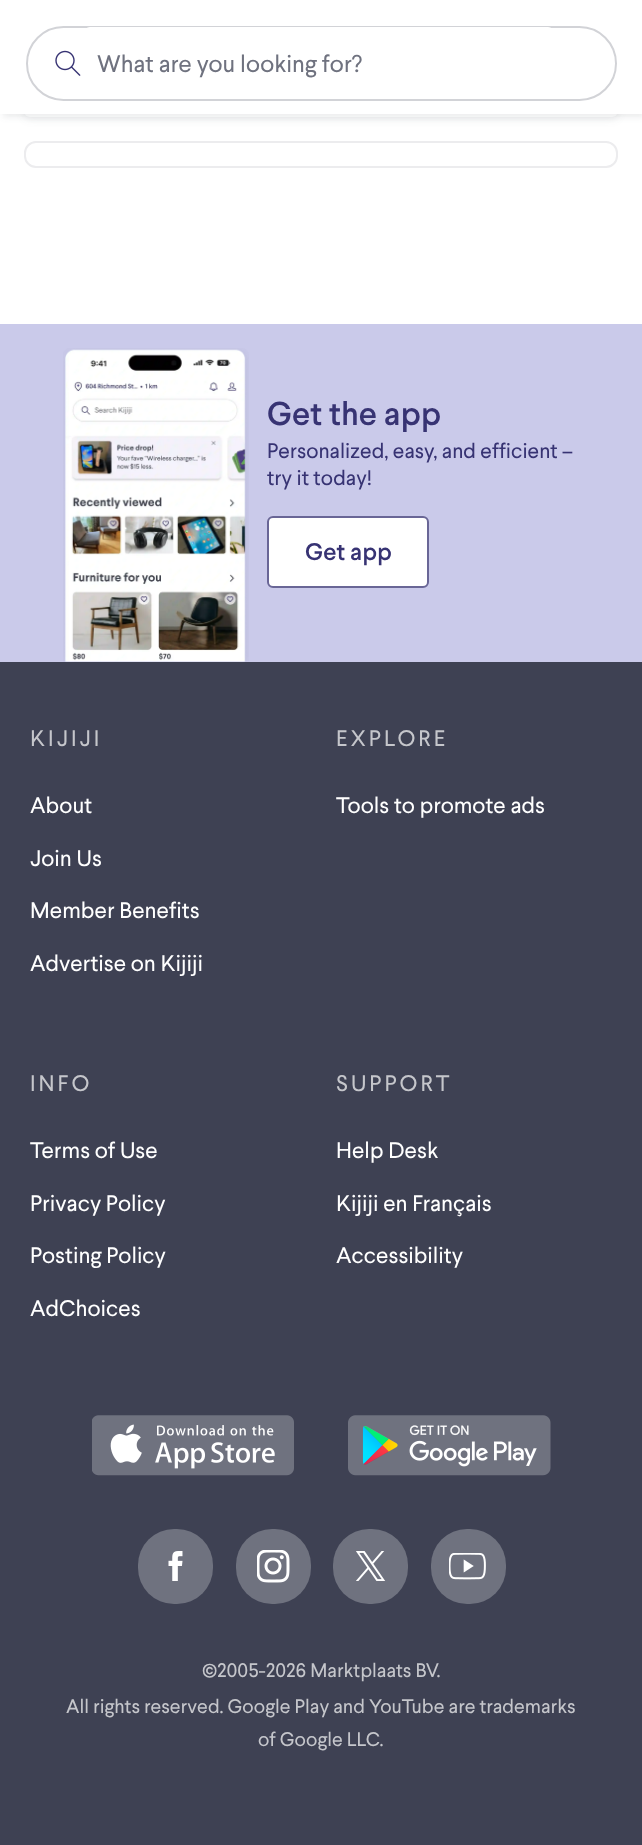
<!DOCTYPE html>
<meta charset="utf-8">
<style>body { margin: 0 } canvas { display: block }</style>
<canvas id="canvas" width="642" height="1845"></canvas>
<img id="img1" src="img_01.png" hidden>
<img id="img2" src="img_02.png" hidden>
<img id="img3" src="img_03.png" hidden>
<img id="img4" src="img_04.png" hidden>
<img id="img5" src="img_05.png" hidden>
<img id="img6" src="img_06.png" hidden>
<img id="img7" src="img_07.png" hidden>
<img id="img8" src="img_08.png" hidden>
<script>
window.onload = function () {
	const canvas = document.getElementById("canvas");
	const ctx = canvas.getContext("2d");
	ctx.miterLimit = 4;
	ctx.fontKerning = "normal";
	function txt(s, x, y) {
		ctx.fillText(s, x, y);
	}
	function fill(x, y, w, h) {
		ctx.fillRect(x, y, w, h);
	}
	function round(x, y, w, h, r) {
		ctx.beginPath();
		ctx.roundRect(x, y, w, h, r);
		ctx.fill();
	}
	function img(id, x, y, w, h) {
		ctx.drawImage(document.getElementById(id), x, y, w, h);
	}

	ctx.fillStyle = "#FFFFFF";
	fill(0, 0, 642, 1845);
	ctx.fillStyle = "rgba(52, 55, 70, 0.1)";
	ctx.filter = "blur(4px)";
	ctx.beginPath();
	ctx.roundRect(24, -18, 594, 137, 6);
	ctx.fill();
	ctx.filter = "none";
	ctx.fillStyle = "#FFFFFF";
	round(24, -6, 594, 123, 6);
	ctx.beginPath();
	ctx.roundRect(25, 142, 592, 25, 11);
	ctx.strokeStyle = "#ECECEE";
	ctx.lineWidth = 2;
	ctx.stroke();
	ctx.fillStyle = "rgba(62, 65, 83, 0.1)";
	ctx.filter = "blur(3px)";
	ctx.beginPath();
	ctx.rect(3, 3, 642, 114);
	ctx.fill();
	ctx.filter = "none";
	ctx.fillStyle = "#FFFFFF";
	fill(0, 0, 642, 114);
	ctx.beginPath();
	ctx.roundRect(27, 27, 589, 73, 36.5);
	ctx.strokeStyle = "#D2D3D7";
	ctx.stroke();
	img("img1", 55, 50, 26, 26);
	round(84, 27, 470, 72, 6);
	ctx.fillStyle = "#3E4153";
	fill(0, 662, 642, 1183);
	ctx.fillStyle = "#CACAEA";
	fill(0, 324, 642, 338);
	img("img2", 63, 348, 186, 314);
	ctx.fillStyle = "#FFFFFF";
	ctx.beginPath();
	ctx.roundRect(268, 517, 160, 70, 5);
	ctx.fill();
	ctx.strokeStyle = "#696696";
	ctx.stroke();
	img("img3", 92, 1415, 202, 61);
	img("img4", 348, 1415, 203, 61);
	ctx.fillStyle = "#6F727F";
	round(138, 1529, 75, 75, 36);
	img("img5", 168, 1551, 15, 30);
	round(236, 1529, 75, 75, 36);
	img("img6", 257, 1550, 33, 33);
	round(333, 1529, 75, 75, 36);
	img("img7", 356, 1551, 30, 30);
	round(431, 1529, 75, 75, 36);
	img("img8", 449, 1553, 37, 27);
	ctx.font = "24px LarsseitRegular";
	txt("What are you looking for?", 97, 72);
	ctx.font = "500 33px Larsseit";
	ctx.fillStyle = "#373373";
	txt("Get the app", 267, 425);
	ctx.font = "21px LarsseitRegular";
	txt("Personalized, easy, and efficient –", 267, 458);
	txt("try it today!", 267, 485);
	ctx.font = "500 24px Larsseit";
	txt("Get app", 305, 560);
	ctx.letterSpacing = "3px";
	ctx.font = "22.5px LarsseitRegular";
	ctx.fillStyle = "#C5C6CB";
	txt("KIJIJI", 30, 746);
	ctx.letterSpacing = "0px";
	ctx.fillStyle = "#FFFFFF";
	txt("About", 30, 813);
	txt("Join Us", 30, 866);
	txt("Member Benefits", 30, 918);
	txt("Advertise on Kijiji", 30, 971);
	ctx.letterSpacing = "3px";
	ctx.fillStyle = "#C5C6CB";
	txt("EXPLORE", 336, 746);
	ctx.letterSpacing = "0px";
	ctx.fillStyle = "#FFFFFF";
	txt("Tools to promote ads", 336, 813);
	ctx.letterSpacing = "3px";
	ctx.fillStyle = "#C5C6CB";
	txt("INFO", 30, 1091);
	ctx.letterSpacing = "0px";
	ctx.fillStyle = "#FFFFFF";
	txt("Terms of Use", 30, 1158);
	txt("Privacy Policy", 30, 1211);
	txt("Posting Policy", 30, 1263);
	txt("AdChoices", 30, 1316);
	ctx.letterSpacing = "3px";
	ctx.fillStyle = "#C5C6CB";
	txt("SUPPORT", 336, 1091);
	ctx.letterSpacing = "0px";
	ctx.fillStyle = "#FFFFFF";
	txt("Help Desk", 336, 1158);
	txt("Kijiji en Français", 336, 1211);
	txt("Accessibility", 336, 1263);
	ctx.font = "26px LarsseitRegular";
	ctx.fillStyle = "#C5C6CB";
	txt("©", 202, 1683);
	ctx.font = "19.5px LarsseitRegular";
	txt("2005-2026 Marktplaats BV.", 217, 1677);
	txt("All rights reserved. Google Play and YouTube are trademarks", 66, 1713);
	txt("of Google LLC.", 258, 1746);
};
</script>
